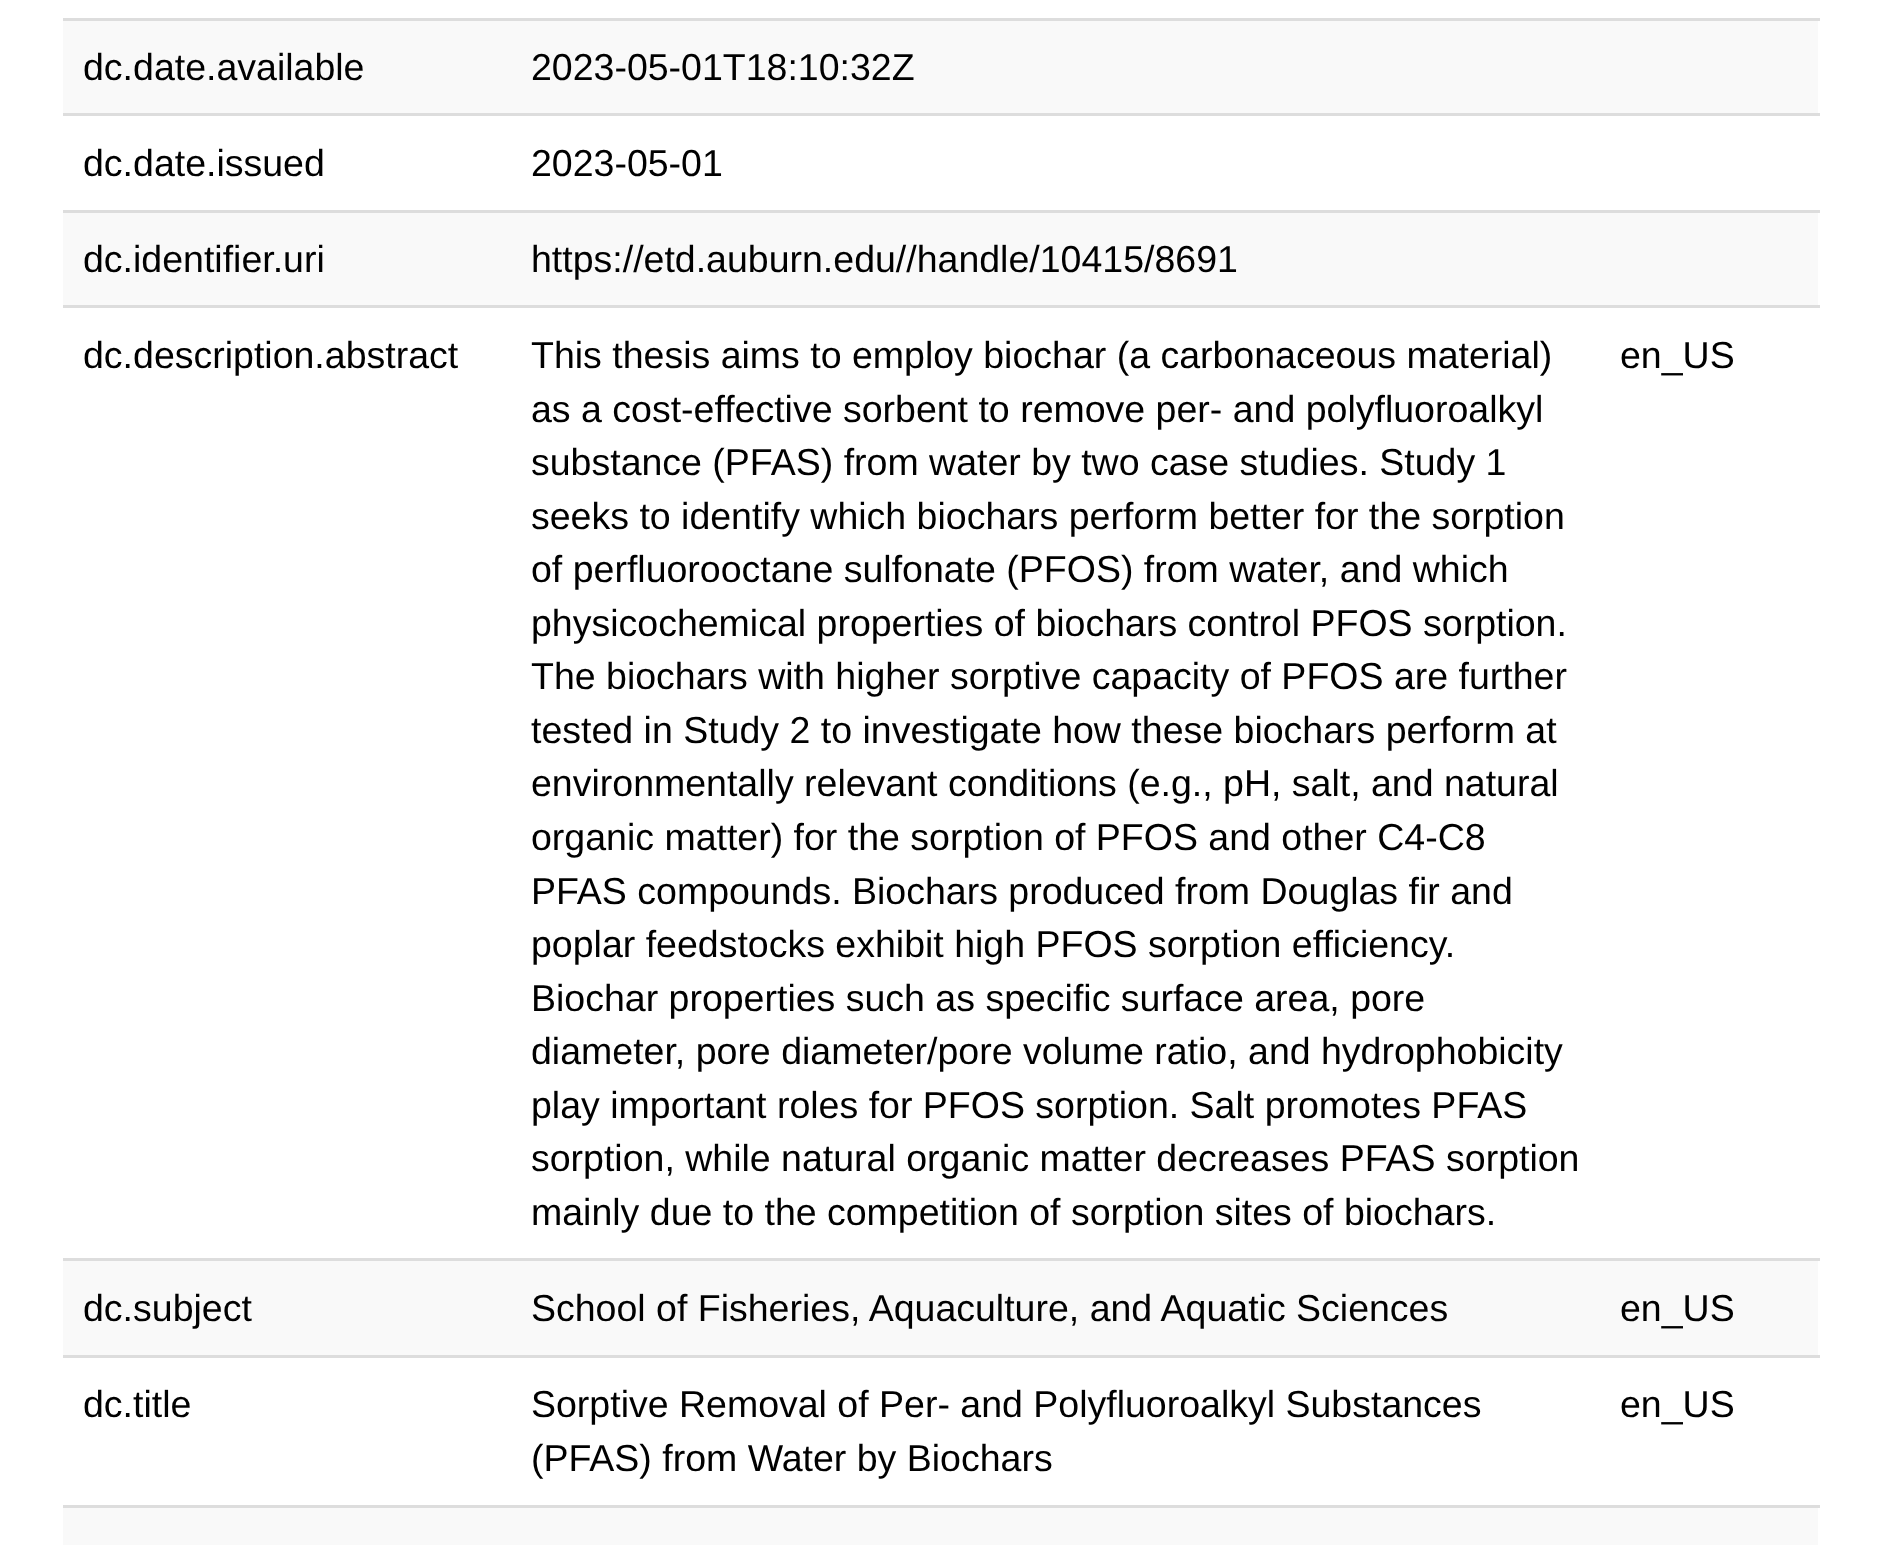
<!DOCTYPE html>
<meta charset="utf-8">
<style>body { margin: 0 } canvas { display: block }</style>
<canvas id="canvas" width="1878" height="1545"></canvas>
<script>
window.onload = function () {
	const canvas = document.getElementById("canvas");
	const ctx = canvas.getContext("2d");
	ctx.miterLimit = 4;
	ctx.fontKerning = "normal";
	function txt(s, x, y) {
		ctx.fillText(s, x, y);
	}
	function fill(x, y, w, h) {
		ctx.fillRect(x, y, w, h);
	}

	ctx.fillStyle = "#FFFFFF";
	fill(0, 0, 1878, 1545);
	ctx.fillStyle = "#F9F9F9";
	fill(63, 21, 1755, 92);
	ctx.fillStyle = "#DDDDDD";
	fill(63, 18, 1757, 3);
	fill(63, 113, 1757, 3);
	ctx.fillStyle = "#F9F9F9";
	fill(63, 213, 1755, 92);
	ctx.fillStyle = "#DDDDDD";
	fill(63, 210, 1757, 3);
	fill(63, 305, 1757, 3);
	ctx.fillStyle = "#F9F9F9";
	fill(63, 1261, 1755, 94);
	ctx.fillStyle = "#DDDDDD";
	fill(63, 1258, 1757, 3);
	fill(63, 1355, 1757, 3);
	ctx.fillStyle = "#F9F9F9";
	fill(63, 1508, 1755, 37);
	ctx.fillStyle = "#DDDDDD";
	fill(63, 1505, 1757, 3);
	ctx.font = "37.5px Liberation Sans";
	ctx.fillStyle = "#000000";
	txt("dc.date.available", 83, 80);
	txt("2023-05-01T18:10:32Z", 531, 80);
	txt("dc.date.issued", 83, 176);
	txt("2023-05-01", 531, 176);
	txt("dc.identifier.uri", 83, 272);
	txt("https://etd.auburn.edu//handle/10415/8691", 531, 272);
	txt("dc.description.abstract", 83, 368);
	txt("This thesis aims to employ biochar (a carbonaceous material)", 531, 368);
	txt("as a cost-effective sorbent to remove per- and polyfluoroalkyl", 531, 422);
	txt("substance (PFAS) from water by two case studies. Study 1", 531, 475);
	txt("seeks to identify which biochars perform better for the sorption", 531, 529);
	txt("of perfluorooctane sulfonate (PFOS) from water, and which", 531, 582);
	txt("physicochemical properties of biochars control PFOS sorption.", 531, 636);
	txt("The biochars with higher sorptive capacity of PFOS are further", 531, 689);
	txt("tested in Study 2 to investigate how these biochars perform at", 531, 743);
	txt("environmentally relevant conditions (e.g., pH, salt, and natural", 531, 796);
	txt("organic matter) for the sorption of PFOS and other C4-C8", 531, 850);
	txt("PFAS compounds. Biochars produced from Douglas fir and", 531, 904);
	txt("poplar feedstocks exhibit high PFOS sorption efficiency.", 531, 957);
	txt("Biochar properties such as specific surface area, pore", 531, 1011);
	txt("diameter, pore diameter/pore volume ratio, and hydrophobicity", 531, 1064);
	txt("play important roles for PFOS sorption. Salt promotes PFAS", 531, 1118);
	txt("sorption, while natural organic matter decreases PFAS sorption", 531, 1171);
	txt("mainly due to the competition of sorption sites of biochars.", 531, 1225);
	txt("en_US", 1620, 368);
	txt("dc.subject", 83, 1321);
	txt("School of Fisheries, Aquaculture, and Aquatic Sciences", 531, 1321);
	txt("en_US", 1620, 1321);
	txt("dc.title", 83, 1417);
	txt("Sorptive Removal of Per- and Polyfluoroalkyl Substances", 531, 1417);
	txt("(PFAS) from Water by Biochars", 531, 1471);
	txt("en_US", 1620, 1417);
};
</script>
